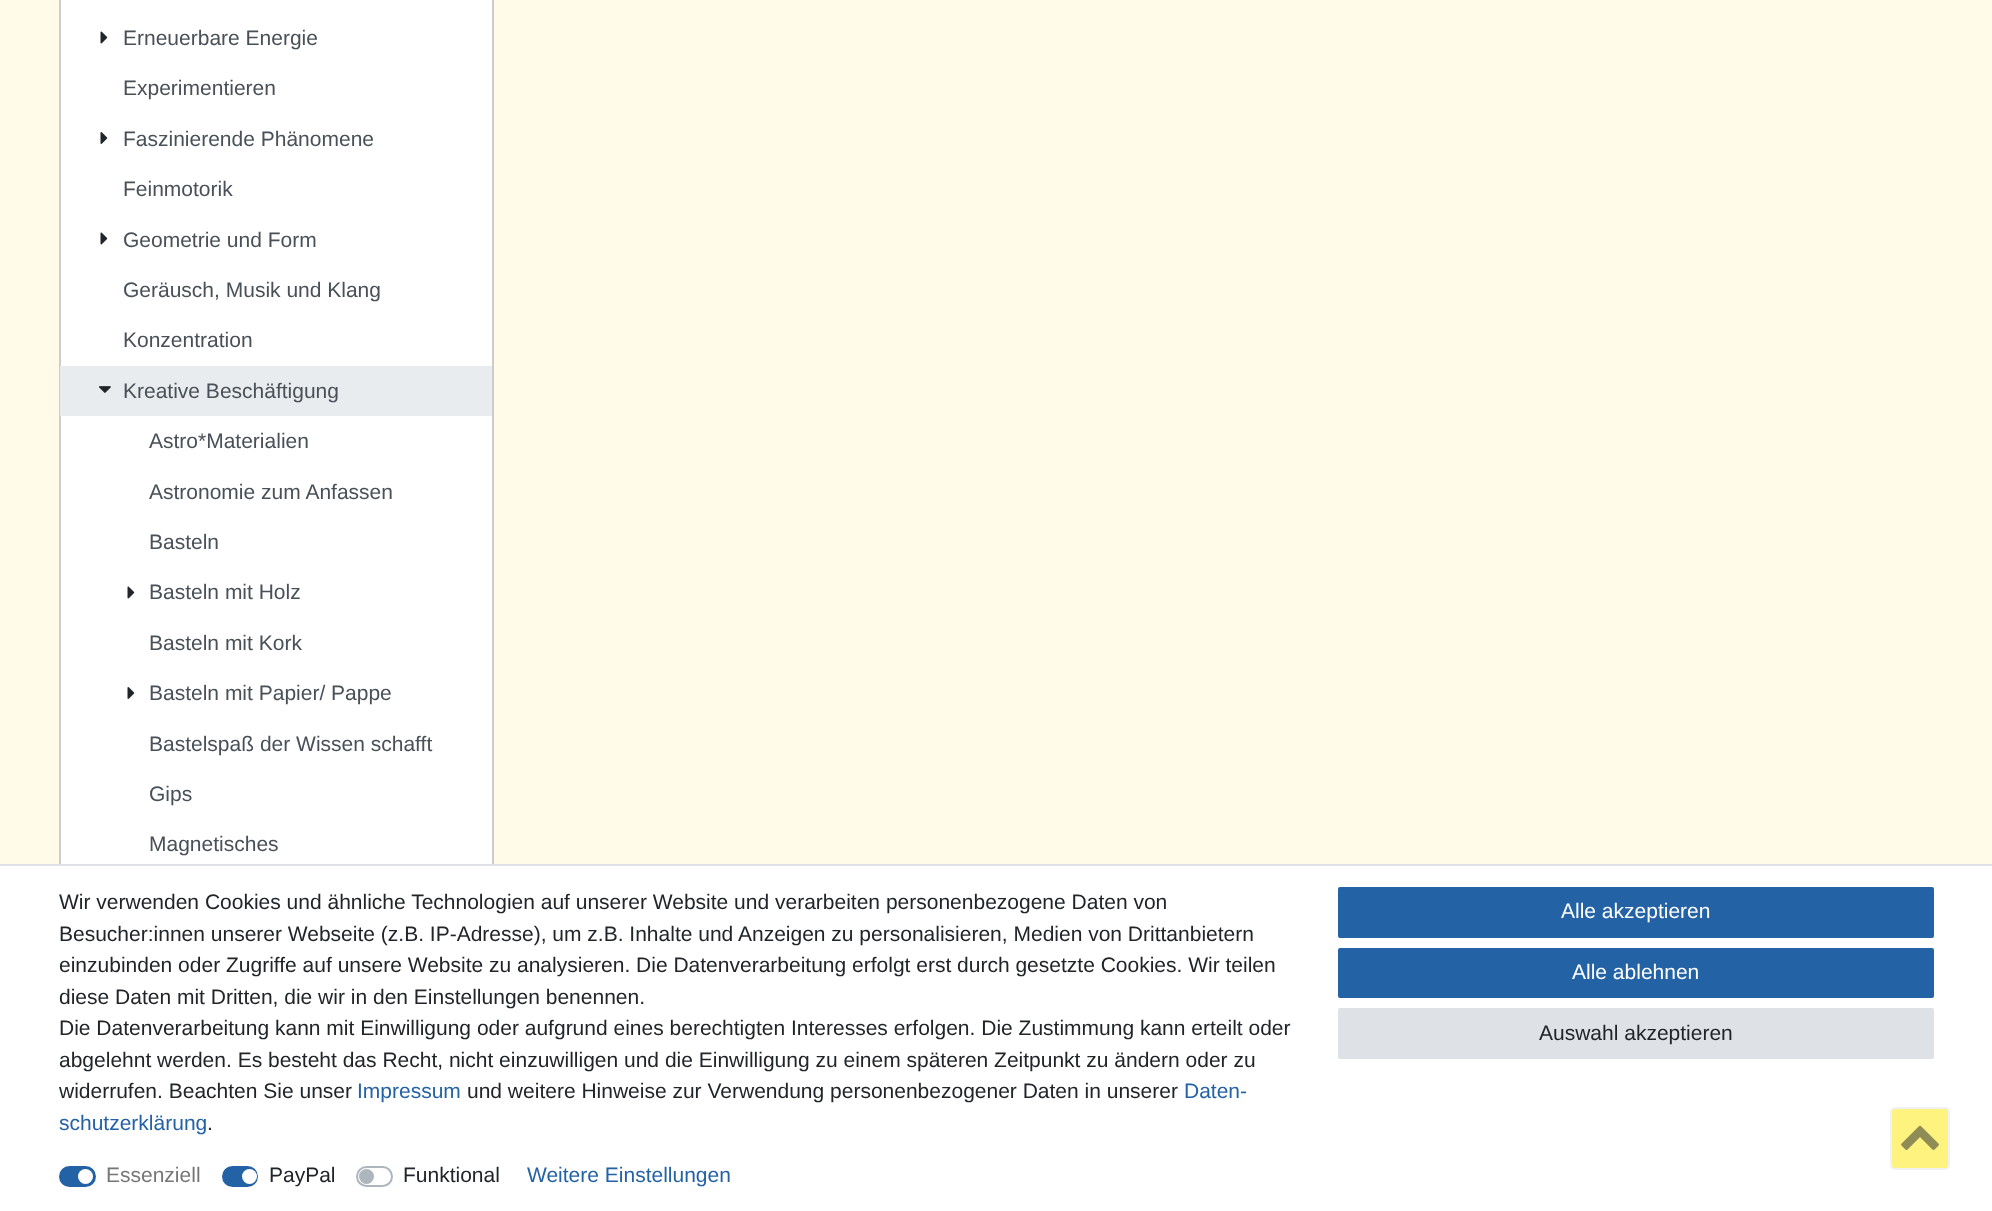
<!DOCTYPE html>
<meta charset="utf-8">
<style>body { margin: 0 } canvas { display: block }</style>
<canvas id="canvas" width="1992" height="1211"></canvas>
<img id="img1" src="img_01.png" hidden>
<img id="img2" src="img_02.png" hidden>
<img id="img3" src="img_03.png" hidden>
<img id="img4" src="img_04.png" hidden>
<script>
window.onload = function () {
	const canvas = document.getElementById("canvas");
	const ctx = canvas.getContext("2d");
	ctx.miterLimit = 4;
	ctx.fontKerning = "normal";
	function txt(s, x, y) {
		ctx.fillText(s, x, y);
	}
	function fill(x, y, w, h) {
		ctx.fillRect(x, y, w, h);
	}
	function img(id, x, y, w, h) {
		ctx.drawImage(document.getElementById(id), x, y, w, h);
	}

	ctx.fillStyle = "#FFFBE8";
	fill(0, 0, 1992, 1211);
	ctx.fillStyle = "#FFFFFF";
	fill(61, 0, 431, 864);
	ctx.strokeStyle = "#CCCCCC";
	ctx.lineWidth = 2;
	ctx.strokeRect(60, -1, 433, 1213);
	img("img1", 100, 31, 8, 13);
	img("img2", 100, 132, 8, 12);
	img("img1", 100, 232, 8, 13);
	ctx.fillStyle = "#E9ECEF";
	fill(60, 366, 432, 50);
	img("img3", 99, 386, 12, 7);
	img("img1", 127, 586, 8, 13);
	img("img2", 127, 687, 8, 12);
	ctx.fillStyle = "#FFFFFF";
	fill(0, 866, 1992, 345);
	ctx.fillStyle = "#DEE2E6";
	fill(0, 864, 1992, 2);
	ctx.fillStyle = "#2462A6";
	ctx.beginPath();
	ctx.roundRect(60, 1167, 35, 19, 9.5);
	ctx.fill();
	ctx.strokeStyle = "#2462A6";
	ctx.stroke();
	ctx.fillStyle = "#FFFFFF";
	ctx.beginPath();
	ctx.arc(85.5, 1176.5, 7.5, 0, Math.PI * 2);
	ctx.fill();
	ctx.fillStyle = "#2462A6";
	ctx.beginPath();
	ctx.roundRect(223, 1167, 34, 19, 9.5);
	ctx.fill();
	ctx.stroke();
	ctx.fillStyle = "#FFFFFF";
	ctx.beginPath();
	ctx.arc(249.5, 1176.5, 7.5, 0, Math.PI * 2);
	ctx.fill();
	ctx.beginPath();
	ctx.roundRect(357, 1167, 35, 19, 9.5);
	ctx.strokeStyle = "#ADB5BD";
	ctx.stroke();
	ctx.fillStyle = "#ADB5BD";
	ctx.beginPath();
	ctx.arc(366.5, 1176.5, 7.5, 0, Math.PI * 2);
	ctx.fill();
	ctx.fillStyle = "#2462A6";
	ctx.beginPath();
	ctx.roundRect(1339, 888, 594, 49, 1);
	ctx.fill();
	ctx.strokeStyle = "#2462A6";
	ctx.stroke();
	ctx.beginPath();
	ctx.roundRect(1339, 949, 594, 48, 1);
	ctx.fill();
	ctx.stroke();
	ctx.fillStyle = "#DEE2E6";
	ctx.beginPath();
	ctx.roundRect(1339, 1009, 594, 49, 1);
	ctx.fill();
	ctx.strokeStyle = "#DEE2E6";
	ctx.stroke();
	ctx.fillStyle = "#FFF380";
	ctx.beginPath();
	ctx.roundRect(1891, 1108, 58, 61, 4);
	ctx.fill();
	ctx.strokeStyle = "#EFF1F3";
	ctx.stroke();
	img("img4", 1901, 1125, 38, 25);
	ctx.font = "21px Liberation Sans";
	ctx.fillStyle = "#495057";
	txt("Erneuerbare Energie", 123, 45);
	txt("Experimentieren", 123, 95);
	txt("Faszinierende Phänomene", 123, 146);
	txt("Feinmotorik", 123, 196);
	txt("Geometrie und Form", 123, 247);
	txt("Geräusch, Musik und Klang", 123, 297);
	txt("Konzentration", 123, 347);
	txt("Kreative Beschäftigung", 123, 398);
	txt("Astro*Materialien", 149, 448);
	txt("Astronomie zum Anfassen", 149, 499);
	txt("Basteln", 149, 549);
	txt("Basteln mit Holz", 149, 599);
	txt("Basteln mit Kork", 149, 650);
	txt("Basteln mit Papier/ Pappe", 149, 700);
	txt("Bastelspaß der Wissen schafft", 149, 751);
	txt("Gips", 149, 801);
	txt("Magnetisches", 149, 851);
	ctx.fillStyle = "#212529";
	txt("Wir verwenden Cookies und ähnliche Technologien auf unserer Website und verarbeiten personenbezogene Daten von", 59, 909);
	txt("Besucher:innen unserer Webseite (z.B. IP-Adresse), um z.B. Inhalte und Anzeigen zu personalisieren, Medien von Drittanbietern", 59, 941);
	txt("einzubinden oder Zugriffe auf unsere Website zu analysieren. Die Datenverarbeitung erfolgt erst durch gesetzte Cookies. Wir teilen", 59, 972);
	txt("diese Daten mit Dritten, die wir in den Einstellungen benennen.", 59, 1004);
	txt("Die Datenverarbeitung kann mit Einwilligung oder aufgrund eines berechtigten Interesses erfolgen. Die Zustimmung kann erteilt oder", 59, 1035);
	txt("abgelehnt werden. Es besteht das Recht, nicht einzuwilligen und die Einwilligung zu einem späteren Zeitpunkt zu ändern oder zu", 59, 1067);
	txt("widerrufen. Beachten Sie unser", 59, 1098);
	ctx.fillStyle = "#2462A6";
	txt("Impressum", 357, 1098);
	ctx.fillStyle = "#212529";
	txt("und weitere Hinweise zur Verwendung personenbezogener Daten in unserer", 467, 1098);
	ctx.fillStyle = "#2462A6";
	txt("Daten-", 1184, 1098);
	txt("schutzerklärung", 59, 1130);
	ctx.fillStyle = "#212529";
	txt(".", 207, 1130);
	ctx.fillStyle = "#767676";
	txt("Essenziell", 106, 1182);
	ctx.fillStyle = "#212529";
	txt("PayPal", 269, 1182);
	txt("Funktional", 403, 1182);
	ctx.fillStyle = "#2462A6";
	txt("Weitere Einstellungen", 527, 1182);
	ctx.fillStyle = "#FFFFFF";
	txt("Alle akzeptieren", 1561, 918);
	txt("Alle ablehnen", 1572, 979);
	ctx.fillStyle = "#212529";
	txt("Auswahl akzeptieren", 1539, 1040);
};
</script>
